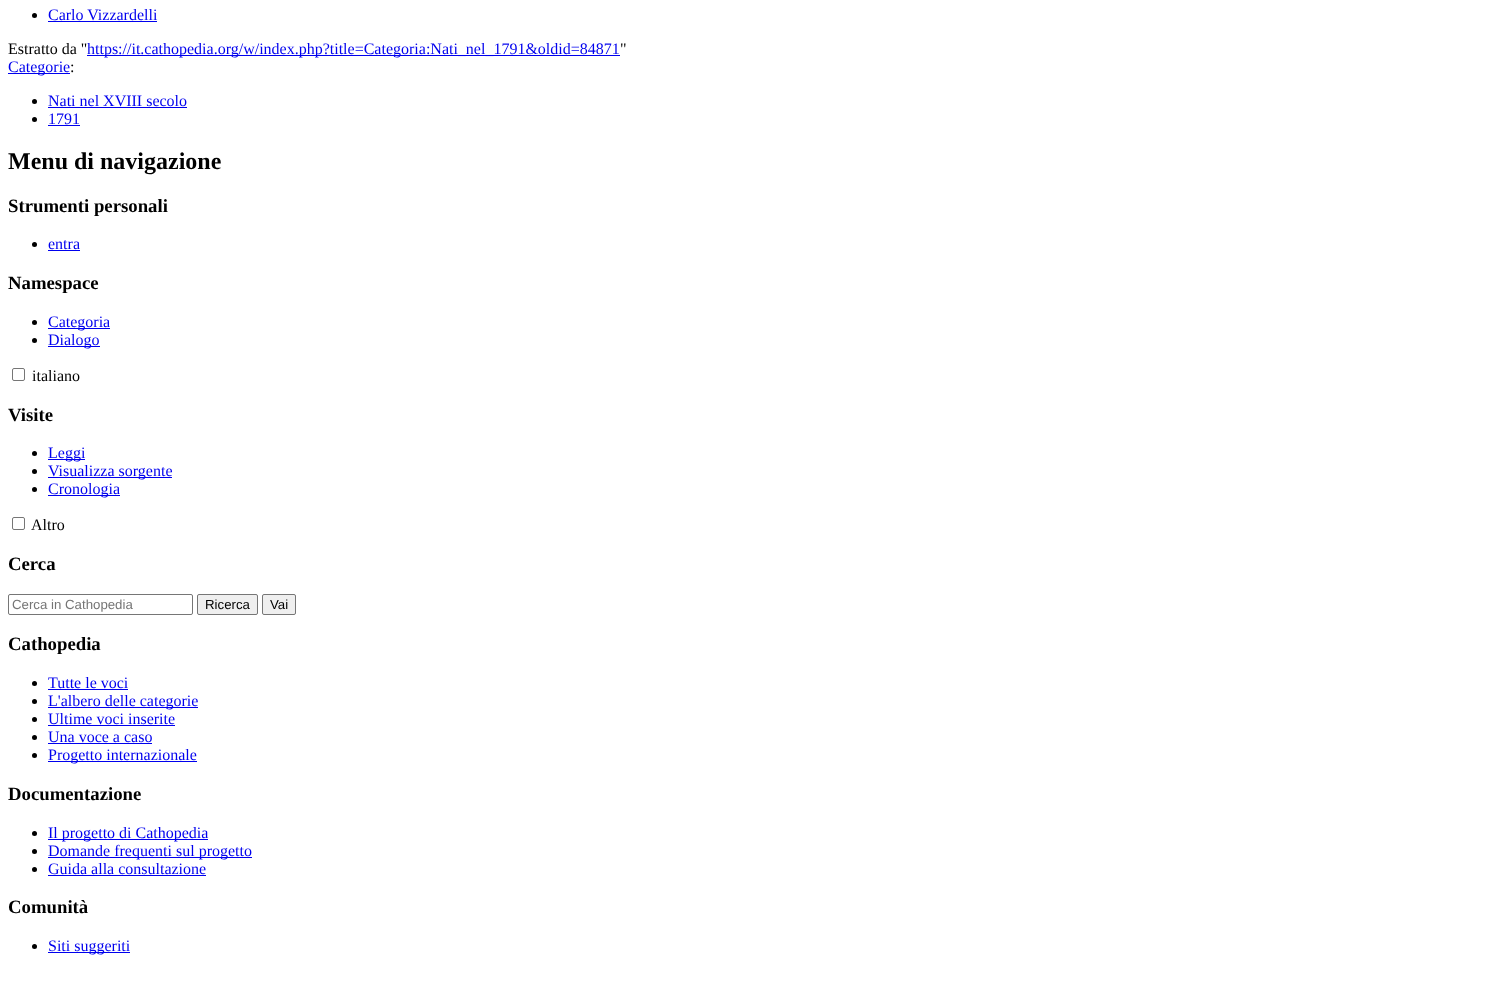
<!DOCTYPE html>
<meta charset="utf-8">
<style>body { margin: 0 } canvas { display: block }</style>
<canvas id="canvas" width="1512" height="987"></canvas>
<script>
window.onload = function () {
	const canvas = document.getElementById("canvas");
	const ctx = canvas.getContext("2d");
	ctx.miterLimit = 4;
	ctx.fontKerning = "normal";
	function txt(s, x, y) {
		ctx.fillText(s, x, y);
	}
	function fill(x, y, w, h) {
		ctx.fillRect(x, y, w, h);
	}

	ctx.fillStyle = "#FFFFFF";
	fill(0, 0, 1512, 987);
	ctx.fillStyle = "#000000";
	ctx.beginPath();
	ctx.arc(34.5, 15.5, 2.5, 0, Math.PI * 2);
	ctx.fill();
	ctx.fillStyle = "#0000EE";
	fill(48, 21, 109, 1);
	fill(87, 55, 533, 1);
	fill(8, 73, 62, 1);
	ctx.fillStyle = "#000000";
	ctx.beginPath();
	ctx.arc(34.5, 101.5, 2.5, 0, Math.PI * 2);
	ctx.fill();
	ctx.fillStyle = "#0000EE";
	fill(48, 107, 139, 1);
	ctx.fillStyle = "#000000";
	ctx.beginPath();
	ctx.arc(34.5, 119.5, 2.5, 0, Math.PI * 2);
	ctx.fill();
	ctx.fillStyle = "#0000EE";
	fill(48, 125, 32, 1);
	ctx.fillStyle = "#000000";
	ctx.beginPath();
	ctx.arc(34.5, 244.5, 2.5, 0, Math.PI * 2);
	ctx.fill();
	ctx.fillStyle = "#0000EE";
	fill(48, 250, 32, 1);
	ctx.fillStyle = "#000000";
	ctx.beginPath();
	ctx.arc(34.5, 322.5, 2.5, 0, Math.PI * 2);
	ctx.fill();
	ctx.fillStyle = "#0000EE";
	fill(48, 328, 62, 1);
	ctx.fillStyle = "#000000";
	ctx.beginPath();
	ctx.arc(34.5, 340.5, 2.5, 0, Math.PI * 2);
	ctx.fill();
	ctx.fillStyle = "#0000EE";
	fill(48, 346, 52, 1);
	ctx.beginPath();
	ctx.roundRect(12.5, 368.5, 12, 12, 1.5);
	ctx.strokeStyle = "#767676";
	ctx.stroke();
	ctx.fillStyle = "#000000";
	ctx.beginPath();
	ctx.arc(34.5, 453.5, 2.5, 0, Math.PI * 2);
	ctx.fill();
	ctx.fillStyle = "#0000EE";
	fill(48, 459, 37, 1);
	ctx.fillStyle = "#000000";
	ctx.beginPath();
	ctx.arc(34.5, 471.5, 2.5, 0, Math.PI * 2);
	ctx.fill();
	ctx.fillStyle = "#0000EE";
	fill(48, 477, 124, 1);
	ctx.fillStyle = "#000000";
	ctx.beginPath();
	ctx.arc(34.5, 489.5, 2.5, 0, Math.PI * 2);
	ctx.fill();
	ctx.fillStyle = "#0000EE";
	fill(48, 495, 72, 1);
	ctx.beginPath();
	ctx.roundRect(12.5, 517.5, 12, 12, 1.5);
	ctx.stroke();
	ctx.beginPath();
	ctx.roundRect(8.5, 594.5, 184, 20, 1.5);
	ctx.stroke();
	ctx.fillStyle = "#EFEFEF";
	ctx.beginPath();
	ctx.roundRect(197.5, 594.5, 60, 20, 1.5);
	ctx.fill();
	ctx.stroke();
	ctx.beginPath();
	ctx.roundRect(262.5, 594.5, 33, 20, 1.5);
	ctx.fill();
	ctx.stroke();
	ctx.fillStyle = "#000000";
	ctx.beginPath();
	ctx.arc(34.5, 683.5, 2.5, 0, Math.PI * 2);
	ctx.fill();
	ctx.fillStyle = "#0000EE";
	fill(48, 689, 80, 1);
	ctx.fillStyle = "#000000";
	ctx.beginPath();
	ctx.arc(34.5, 701.5, 2.5, 0, Math.PI * 2);
	ctx.fill();
	ctx.fillStyle = "#0000EE";
	fill(48, 707, 150, 1);
	ctx.fillStyle = "#000000";
	ctx.beginPath();
	ctx.arc(34.5, 719.5, 2.5, 0, Math.PI * 2);
	ctx.fill();
	ctx.fillStyle = "#0000EE";
	fill(48, 725, 127, 1);
	ctx.fillStyle = "#000000";
	ctx.beginPath();
	ctx.arc(34.5, 737.5, 2.5, 0, Math.PI * 2);
	ctx.fill();
	ctx.fillStyle = "#0000EE";
	fill(48, 743, 104, 1);
	ctx.fillStyle = "#000000";
	ctx.beginPath();
	ctx.arc(34.5, 755.5, 2.5, 0, Math.PI * 2);
	ctx.fill();
	ctx.fillStyle = "#0000EE";
	fill(48, 761, 149, 1);
	ctx.fillStyle = "#000000";
	ctx.beginPath();
	ctx.arc(34.5, 833.5, 2.5, 0, Math.PI * 2);
	ctx.fill();
	ctx.fillStyle = "#0000EE";
	fill(48, 839, 160, 1);
	ctx.fillStyle = "#000000";
	ctx.beginPath();
	ctx.arc(34.5, 851.5, 2.5, 0, Math.PI * 2);
	ctx.fill();
	ctx.fillStyle = "#0000EE";
	fill(48, 857, 204, 1);
	ctx.fillStyle = "#000000";
	ctx.beginPath();
	ctx.arc(34.5, 869.5, 2.5, 0, Math.PI * 2);
	ctx.fill();
	ctx.fillStyle = "#0000EE";
	fill(48, 875, 158, 1);
	ctx.fillStyle = "#000000";
	ctx.beginPath();
	ctx.arc(34.5, 946.5, 2.5, 0, Math.PI * 2);
	ctx.fill();
	ctx.fillStyle = "#0000EE";
	fill(48, 952, 82, 1);
	ctx.font = "16px Liberation Serif";
	txt("Carlo Vizzardelli", 48, 20);
	ctx.fillStyle = "#000000";
	txt("Estratto da \"", 8, 54);
	ctx.fillStyle = "#0000EE";
	txt("https://it.cathopedia.org/w/index.php?title=Categoria:Nati_nel_1791&oldid=84871", 87, 54);
	ctx.fillStyle = "#000000";
	txt("\"", 620, 54);
	ctx.fillStyle = "#0000EE";
	txt("Categorie", 8, 72);
	ctx.fillStyle = "#000000";
	txt(":", 70, 72);
	ctx.fillStyle = "#0000EE";
	txt("Nati nel XVIII secolo", 48, 106);
	txt("1791", 48, 124);
	ctx.font = "bold 24px Liberation Serif";
	ctx.fillStyle = "#000000";
	txt("Menu di navigazione", 8, 169);
	ctx.font = "bold 18.75px Liberation Serif";
	txt("Strumenti personali", 8, 212);
	ctx.font = "16px Liberation Serif";
	ctx.fillStyle = "#0000EE";
	txt("entra", 48, 249);
	ctx.font = "bold 18.75px Liberation Serif";
	ctx.fillStyle = "#000000";
	txt("Namespace", 8, 289);
	ctx.font = "16px Liberation Serif";
	ctx.fillStyle = "#0000EE";
	txt("Categoria", 48, 327);
	txt("Dialogo", 48, 345);
	ctx.fillStyle = "#000000";
	txt("italiano", 32, 381);
	ctx.font = "bold 18.75px Liberation Serif";
	txt("Visite", 8, 421);
	ctx.font = "16px Liberation Serif";
	ctx.fillStyle = "#0000EE";
	txt("Leggi", 48, 458);
	txt("Visualizza sorgente", 48, 476);
	txt("Cronologia", 48, 494);
	ctx.fillStyle = "#000000";
	txt("Altro", 31, 530);
	ctx.font = "bold 18.75px Liberation Serif";
	txt("Cerca", 8, 570);
	ctx.font = "13.25px Liberation Sans";
	ctx.fillStyle = "#757575";
	txt("Cerca in Cathopedia", 12, 609);
	ctx.fillStyle = "#000000";
	txt("Ricerca", 205, 609);
	txt("Vai", 270, 609);
	ctx.font = "bold 18.75px Liberation Serif";
	txt("Cathopedia", 8, 650);
	ctx.font = "16px Liberation Serif";
	ctx.fillStyle = "#0000EE";
	txt("Tutte le voci", 48, 688);
	txt("L'albero delle categorie", 48, 706);
	txt("Ultime voci inserite", 48, 724);
	txt("Una voce a caso", 48, 742);
	txt("Progetto internazionale", 48, 760);
	ctx.font = "bold 18.75px Liberation Serif";
	ctx.fillStyle = "#000000";
	txt("Documentazione", 8, 800);
	ctx.font = "16px Liberation Serif";
	ctx.fillStyle = "#0000EE";
	txt("Il progetto di Cathopedia", 48, 838);
	txt("Domande frequenti sul progetto", 48, 856);
	txt("Guida alla consultazione", 48, 874);
	ctx.font = "bold 18.75px Liberation Serif";
	ctx.fillStyle = "#000000";
	txt("Comunità", 8, 913);
	ctx.font = "16px Liberation Serif";
	ctx.fillStyle = "#0000EE";
	txt("Siti suggeriti", 48, 951);
};
</script>
